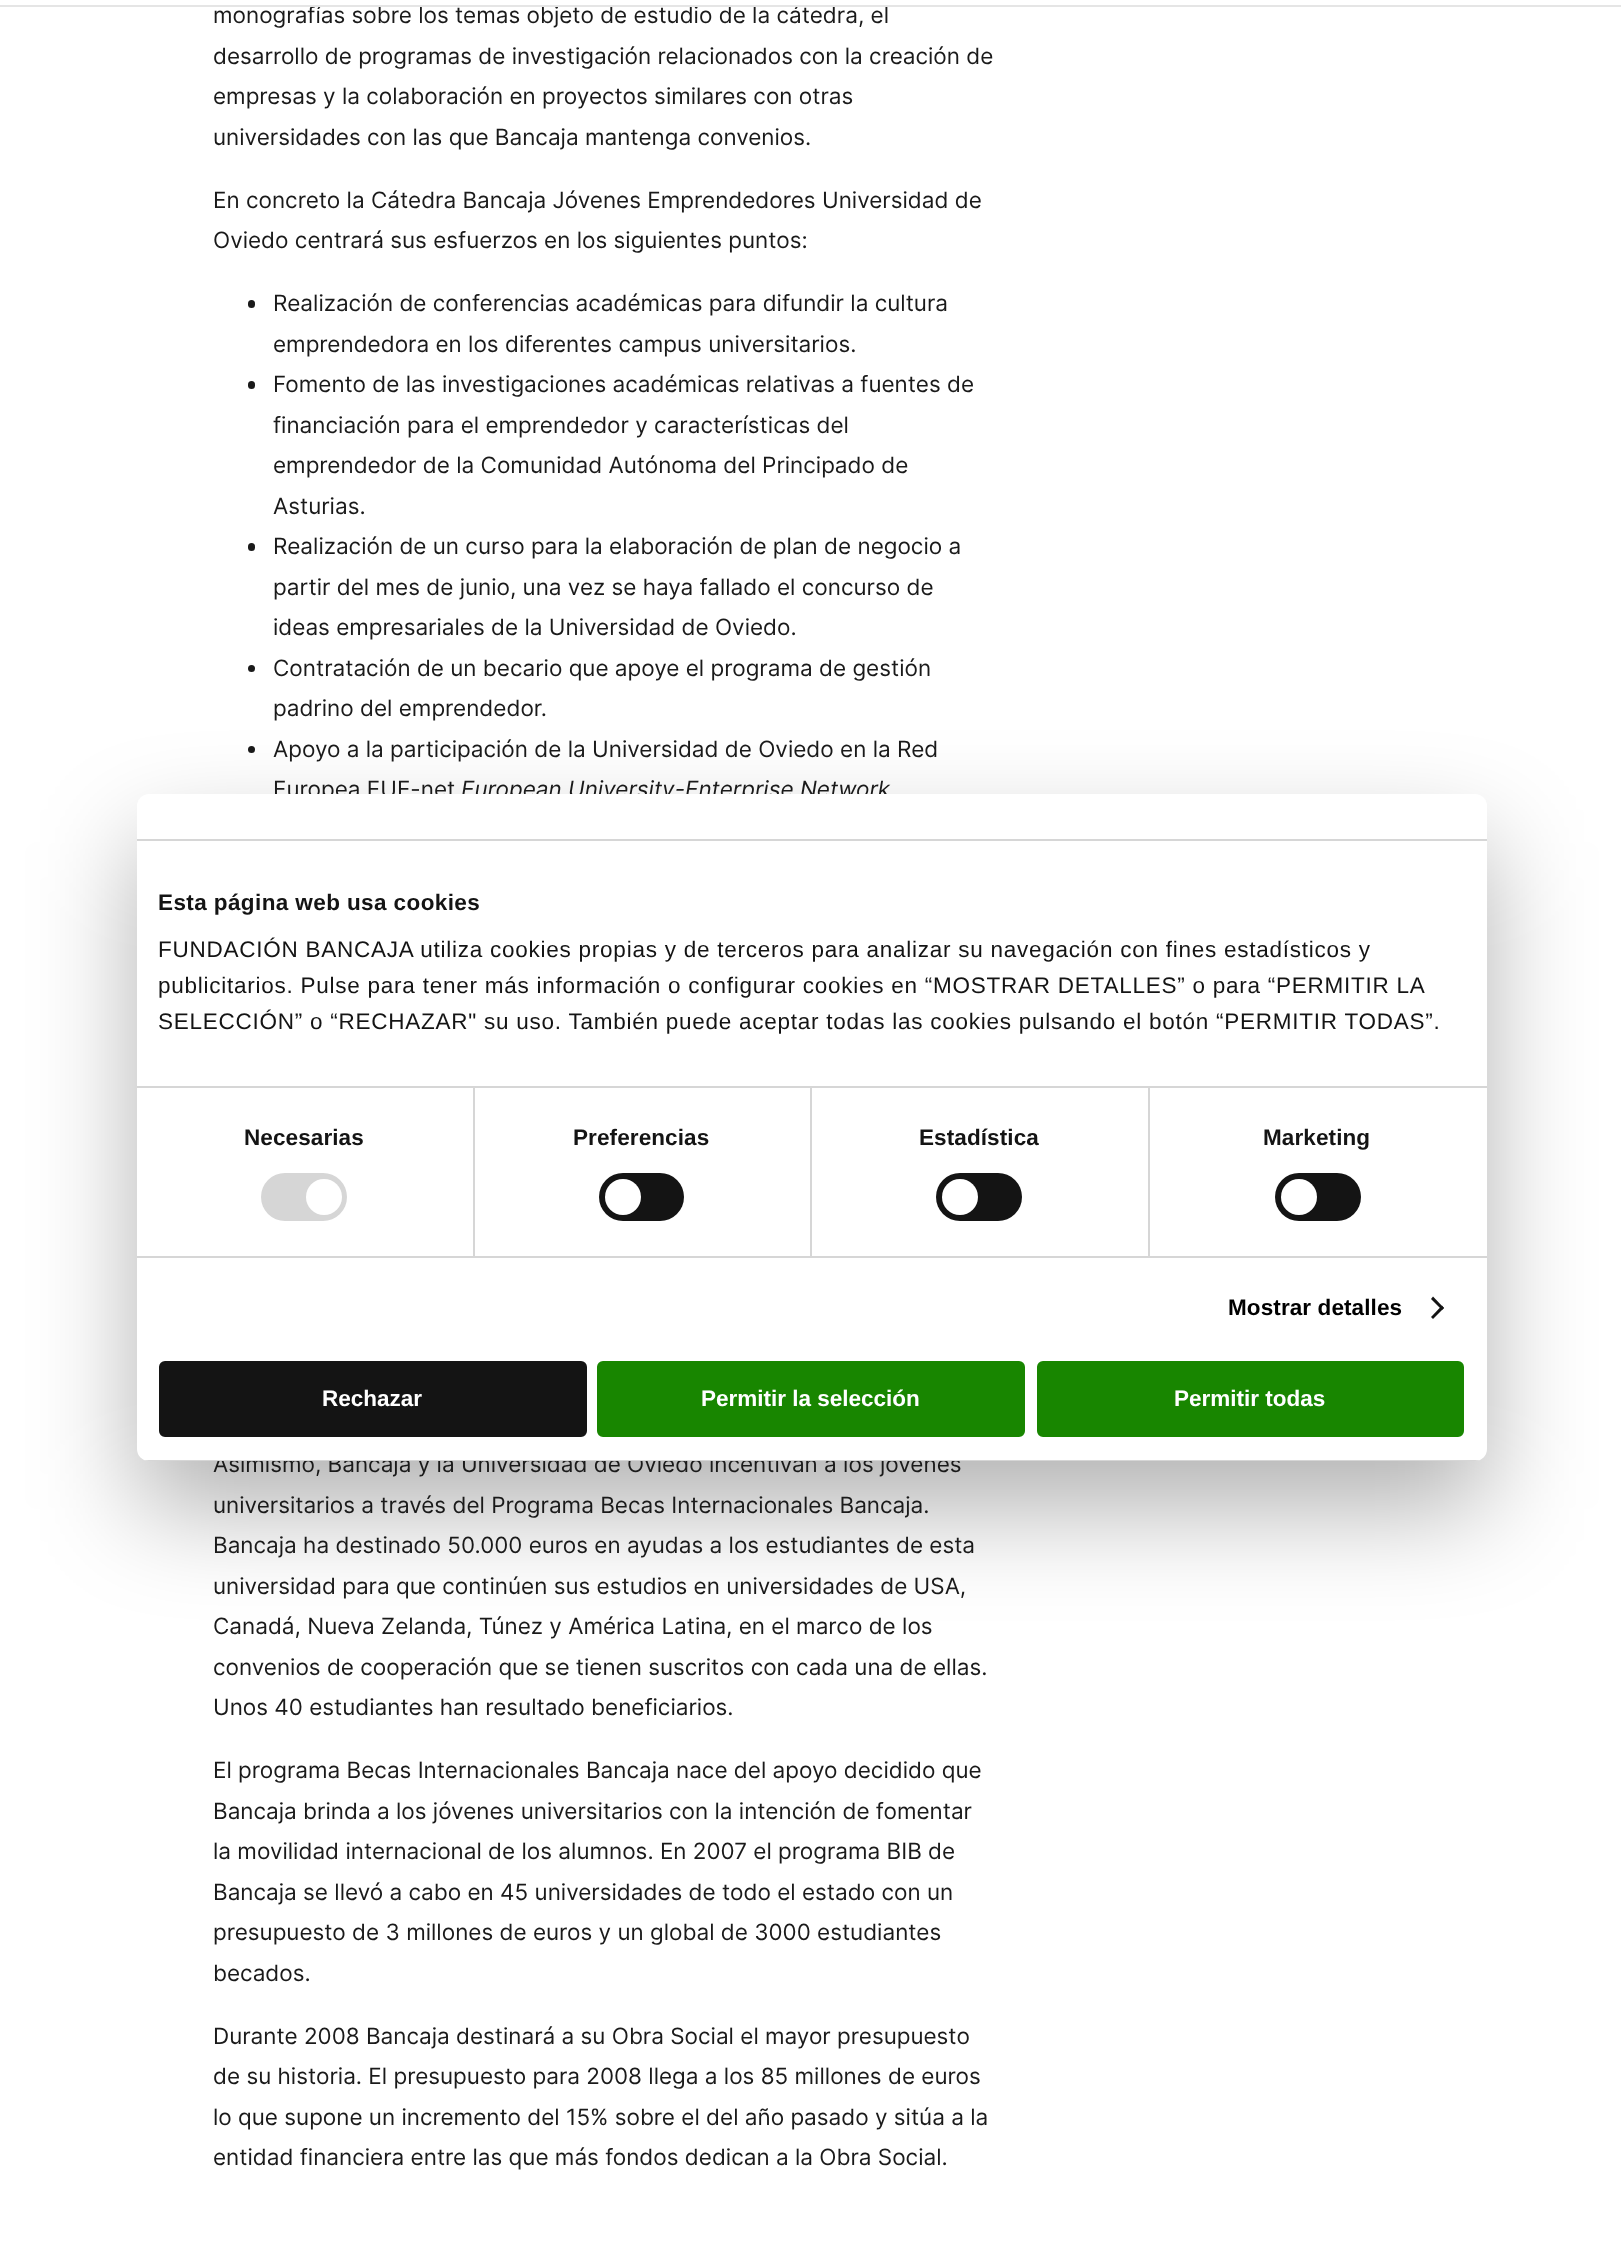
<!DOCTYPE html>
<meta charset="utf-8">
<style>body { margin: 0 } canvas { display: block }</style>
<canvas id="canvas" width="1621" height="2252"></canvas>
<script>
window.onload = function () {
	const canvas = document.getElementById("canvas");
	const ctx = canvas.getContext("2d");
	ctx.miterLimit = 4;
	ctx.fontKerning = "normal";
	function txt(s, x, y) {
		ctx.fillText(s, x, y);
	}
	function fill(x, y, w, h) {
		ctx.fillRect(x, y, w, h);
	}
	function round(x, y, w, h, r) {
		ctx.beginPath();
		ctx.roundRect(x, y, w, h, r);
		ctx.fill();
	}

	ctx.fillStyle = "#FFFFFF";
	fill(0, 0, 1621, 2252);
	ctx.fillStyle = "#1A1A1A";
	round(248, 300, 7, 8, 3.5);
	round(248, 381, 7, 8, 3.5);
	round(248, 543, 7, 8, 3.5);
	ctx.beginPath();
	ctx.arc(251.5, 668.5, 3.5, 0, Math.PI * 2);
	ctx.fill();
	ctx.beginPath();
	ctx.arc(251.5, 749.5, 3.5, 0, Math.PI * 2);
	ctx.fill();
	ctx.fillStyle = "rgba(0, 0, 0, 0.3)";
	ctx.filter = "blur(51px)";
	ctx.beginPath();
	ctx.roundRect(137, 842, 1350, 667, 12);
	ctx.fill();
	ctx.filter = "none";
	ctx.font = "22.5px Inter";
	ctx.fillStyle = "#1A1A1A";
	txt("monografías sobre los temas objeto de estudio de la cátedra, el", 213, 23);
	ctx.fillStyle = "#E5E5E5";
	fill(0, 5, 1621, 2);
	ctx.fillStyle = "#1A1A1A";
	txt("desarrollo de programas de investigación relacionados con la creación de", 213, 64);
	txt("empresas y la colaboración en proyectos similares con otras", 213, 104);
	txt("universidades con las que Bancaja mantenga convenios.", 213, 145);
	txt("En concreto la Cátedra Bancaja Jóvenes Emprendedores Universidad de", 213, 208);
	txt("Oviedo centrará sus esfuerzos en los siguientes puntos:", 213, 248);
	txt("Realización de conferencias académicas para difundir la cultura", 273, 311);
	txt("emprendedora en los diferentes campus universitarios.", 273, 352);
	txt("Fomento de las investigaciones académicas relativas a fuentes de", 273, 392);
	txt("financiación para el emprendedor y características del", 273, 433);
	txt("emprendedor de la Comunidad Autónoma del Principado de", 273, 473);
	txt("Asturias.", 273, 514);
	txt("Realización de un curso para la elaboración de plan de negocio a", 273, 554);
	txt("partir del mes de junio, una vez se haya fallado el concurso de", 273, 595);
	txt("ideas empresariales de la Universidad de Oviedo.", 273, 635);
	txt("Contratación de un becario que apoye el programa de gestión", 273, 676);
	txt("padrino del emprendedor.", 273, 716);
	txt("Apoyo a la participación de la Universidad de Oviedo en la Red", 273, 757);
	txt("Europea EUE-net", 273, 797);
	ctx.font = "italic 22.5px Inter";
	txt("European University-Enterprise Network", 461, 797);
	ctx.font = "22.5px Inter";
	txt("Asimismo, Bancaja y la Universidad de Oviedo incentivan a los jóvenes", 213, 1472);
	txt("universitarios a través del Programa Becas Internacionales Bancaja.", 213, 1513);
	txt("Bancaja ha destinado 50.000 euros en ayudas a los estudiantes de esta", 213, 1553);
	txt("universidad para que continúen sus estudios en universidades de USA,", 213, 1594);
	txt("Canadá, Nueva Zelanda, Túnez y América Latina, en el marco de los", 213, 1634);
	txt("convenios de cooperación que se tienen suscritos con cada una de ellas.", 213, 1675);
	txt("Unos 40 estudiantes han resultado beneficiarios.", 213, 1715);
	txt("El programa Becas Internacionales Bancaja nace del apoyo decidido que", 213, 1778);
	txt("Bancaja brinda a los jóvenes universitarios con la intención de fomentar", 213, 1819);
	txt("la movilidad internacional de los alumnos. En 2007 el programa BIB de", 213, 1859);
	txt("Bancaja se llevó a cabo en 45 universidades de todo el estado con un", 213, 1900);
	txt("presupuesto de 3 millones de euros y un global de 3000 estudiantes", 213, 1940);
	txt("becados.", 213, 1981);
	txt("Durante 2008 Bancaja destinará a su Obra Social el mayor presupuesto", 213, 2044);
	txt("de su historia. El presupuesto para 2008 llega a los 85 millones de euros", 213, 2084);
	txt("lo que supone un incremento del 15% sobre el del año pasado y sitúa a la", 213, 2125);
	txt("entidad financiera entre las que más fondos dedican a la Obra Social.", 213, 2165);
	ctx.fillStyle = "#FFFFFF";
	round(137, 794, 1350, 667, 12);
	ctx.fillStyle = "#D6D6D6";
	fill(137, 839, 1350, 2);
	fill(137, 1086, 1350, 2);
	ctx.letterSpacing = "0.4px";
	ctx.font = "bold 22.5px Liberation Sans";
	ctx.fillStyle = "#141414";
	txt("Esta página web usa cookies", 158, 910);
	ctx.letterSpacing = "0.75px";
	ctx.font = "22.5px Liberation Sans";
	txt("FUNDACIÓN BANCAJA utiliza cookies propias y de terceros para analizar su navegación con fines estadísticos y", 158, 957);
	txt("publicitarios. Pulse para tener más información o configurar cookies en “MOSTRAR DETALLES” o para “PERMITIR LA", 158, 993);
	txt("SELECCIÓN” o “RECHAZAR\" su uso. También puede aceptar todas las cookies pulsando el botón “PERMITIR TODAS”.", 158, 1029);
	ctx.fillStyle = "#D6D6D6";
	fill(137, 1256, 1350, 2);
	fill(473, 1088, 2, 168);
	ctx.letterSpacing = "0.1px";
	ctx.font = "bold 22.5px Liberation Sans";
	ctx.fillStyle = "#141414";
	txt("Necesarias", 244, 1145);
	ctx.fillStyle = "#D6D6D6";
	round(261, 1173, 86, 48, 24);
	ctx.fillStyle = "#FFFFFF";
	ctx.beginPath();
	ctx.arc(324, 1197, 18, 0, Math.PI * 2);
	ctx.fill();
	ctx.fillStyle = "#D6D6D6";
	fill(810, 1088, 2, 168);
	ctx.fillStyle = "#141414";
	txt("Preferencias", 573, 1145);
	round(599, 1173, 85, 48, 24);
	ctx.fillStyle = "#FFFFFF";
	ctx.beginPath();
	ctx.arc(623, 1197, 18, 0, Math.PI * 2);
	ctx.fill();
	ctx.fillStyle = "#D6D6D6";
	fill(1148, 1088, 2, 168);
	ctx.fillStyle = "#141414";
	txt("Estadística", 919, 1145);
	round(936, 1173, 86, 48, 24);
	ctx.fillStyle = "#FFFFFF";
	ctx.beginPath();
	ctx.arc(960, 1197, 18, 0, Math.PI * 2);
	ctx.fill();
	ctx.fillStyle = "#141414";
	txt("Marketing", 1263, 1145);
	round(1275, 1173, 86, 48, 24);
	ctx.fillStyle = "#FFFFFF";
	ctx.beginPath();
	ctx.arc(1299, 1197, 18, 0, Math.PI * 2);
	ctx.fill();
	ctx.fillStyle = "#000000";
	txt("Mostrar detalles", 1228, 1315);
	ctx.fillStyle = "#141414";
	ctx.beginPath();
	ctx.moveTo(1433, 1296.5);
	ctx.lineTo(1444, 1308);
	ctx.lineTo(1442, 1310);
	ctx.lineTo(1431, 1299);
	ctx.closePath();
	ctx.fill();
	ctx.beginPath();
	ctx.moveTo(1442, 1305.5);
	ctx.lineTo(1444, 1308);
	ctx.lineTo(1433, 1319);
	ctx.lineTo(1431, 1317);
	ctx.closePath();
	ctx.fill();
	ctx.save();
	ctx.beginPath();
	ctx.roundRect(137, 794, 1350, 667, 12);
	ctx.clip();
	ctx.fillStyle = "#D6D6D6";
	fill(137, 1460, 1350, 1);
	ctx.restore();
	ctx.beginPath();
	ctx.roundRect(160.5, 1362.5, 425, 73, 4.5);
	ctx.fill();
	ctx.strokeStyle = "#141414";
	ctx.lineWidth = 3;
	ctx.stroke();
	ctx.letterSpacing = "0px";
	ctx.fillStyle = "#FFFFFF";
	txt("Rechazar", 322, 1406);
	ctx.fillStyle = "#188600";
	ctx.beginPath();
	ctx.roundRect(598.5, 1362.5, 425, 73, 4.5);
	ctx.fill();
	ctx.strokeStyle = "#188600";
	ctx.stroke();
	ctx.fillStyle = "#FFFFFF";
	txt("Permitir la selección", 701, 1406);
	ctx.fillStyle = "#188600";
	ctx.beginPath();
	ctx.roundRect(1038.5, 1362.5, 424, 73, 4.5);
	ctx.fill();
	ctx.stroke();
	ctx.fillStyle = "#FFFFFF";
	txt("Permitir todas", 1174, 1406);
};
</script>
